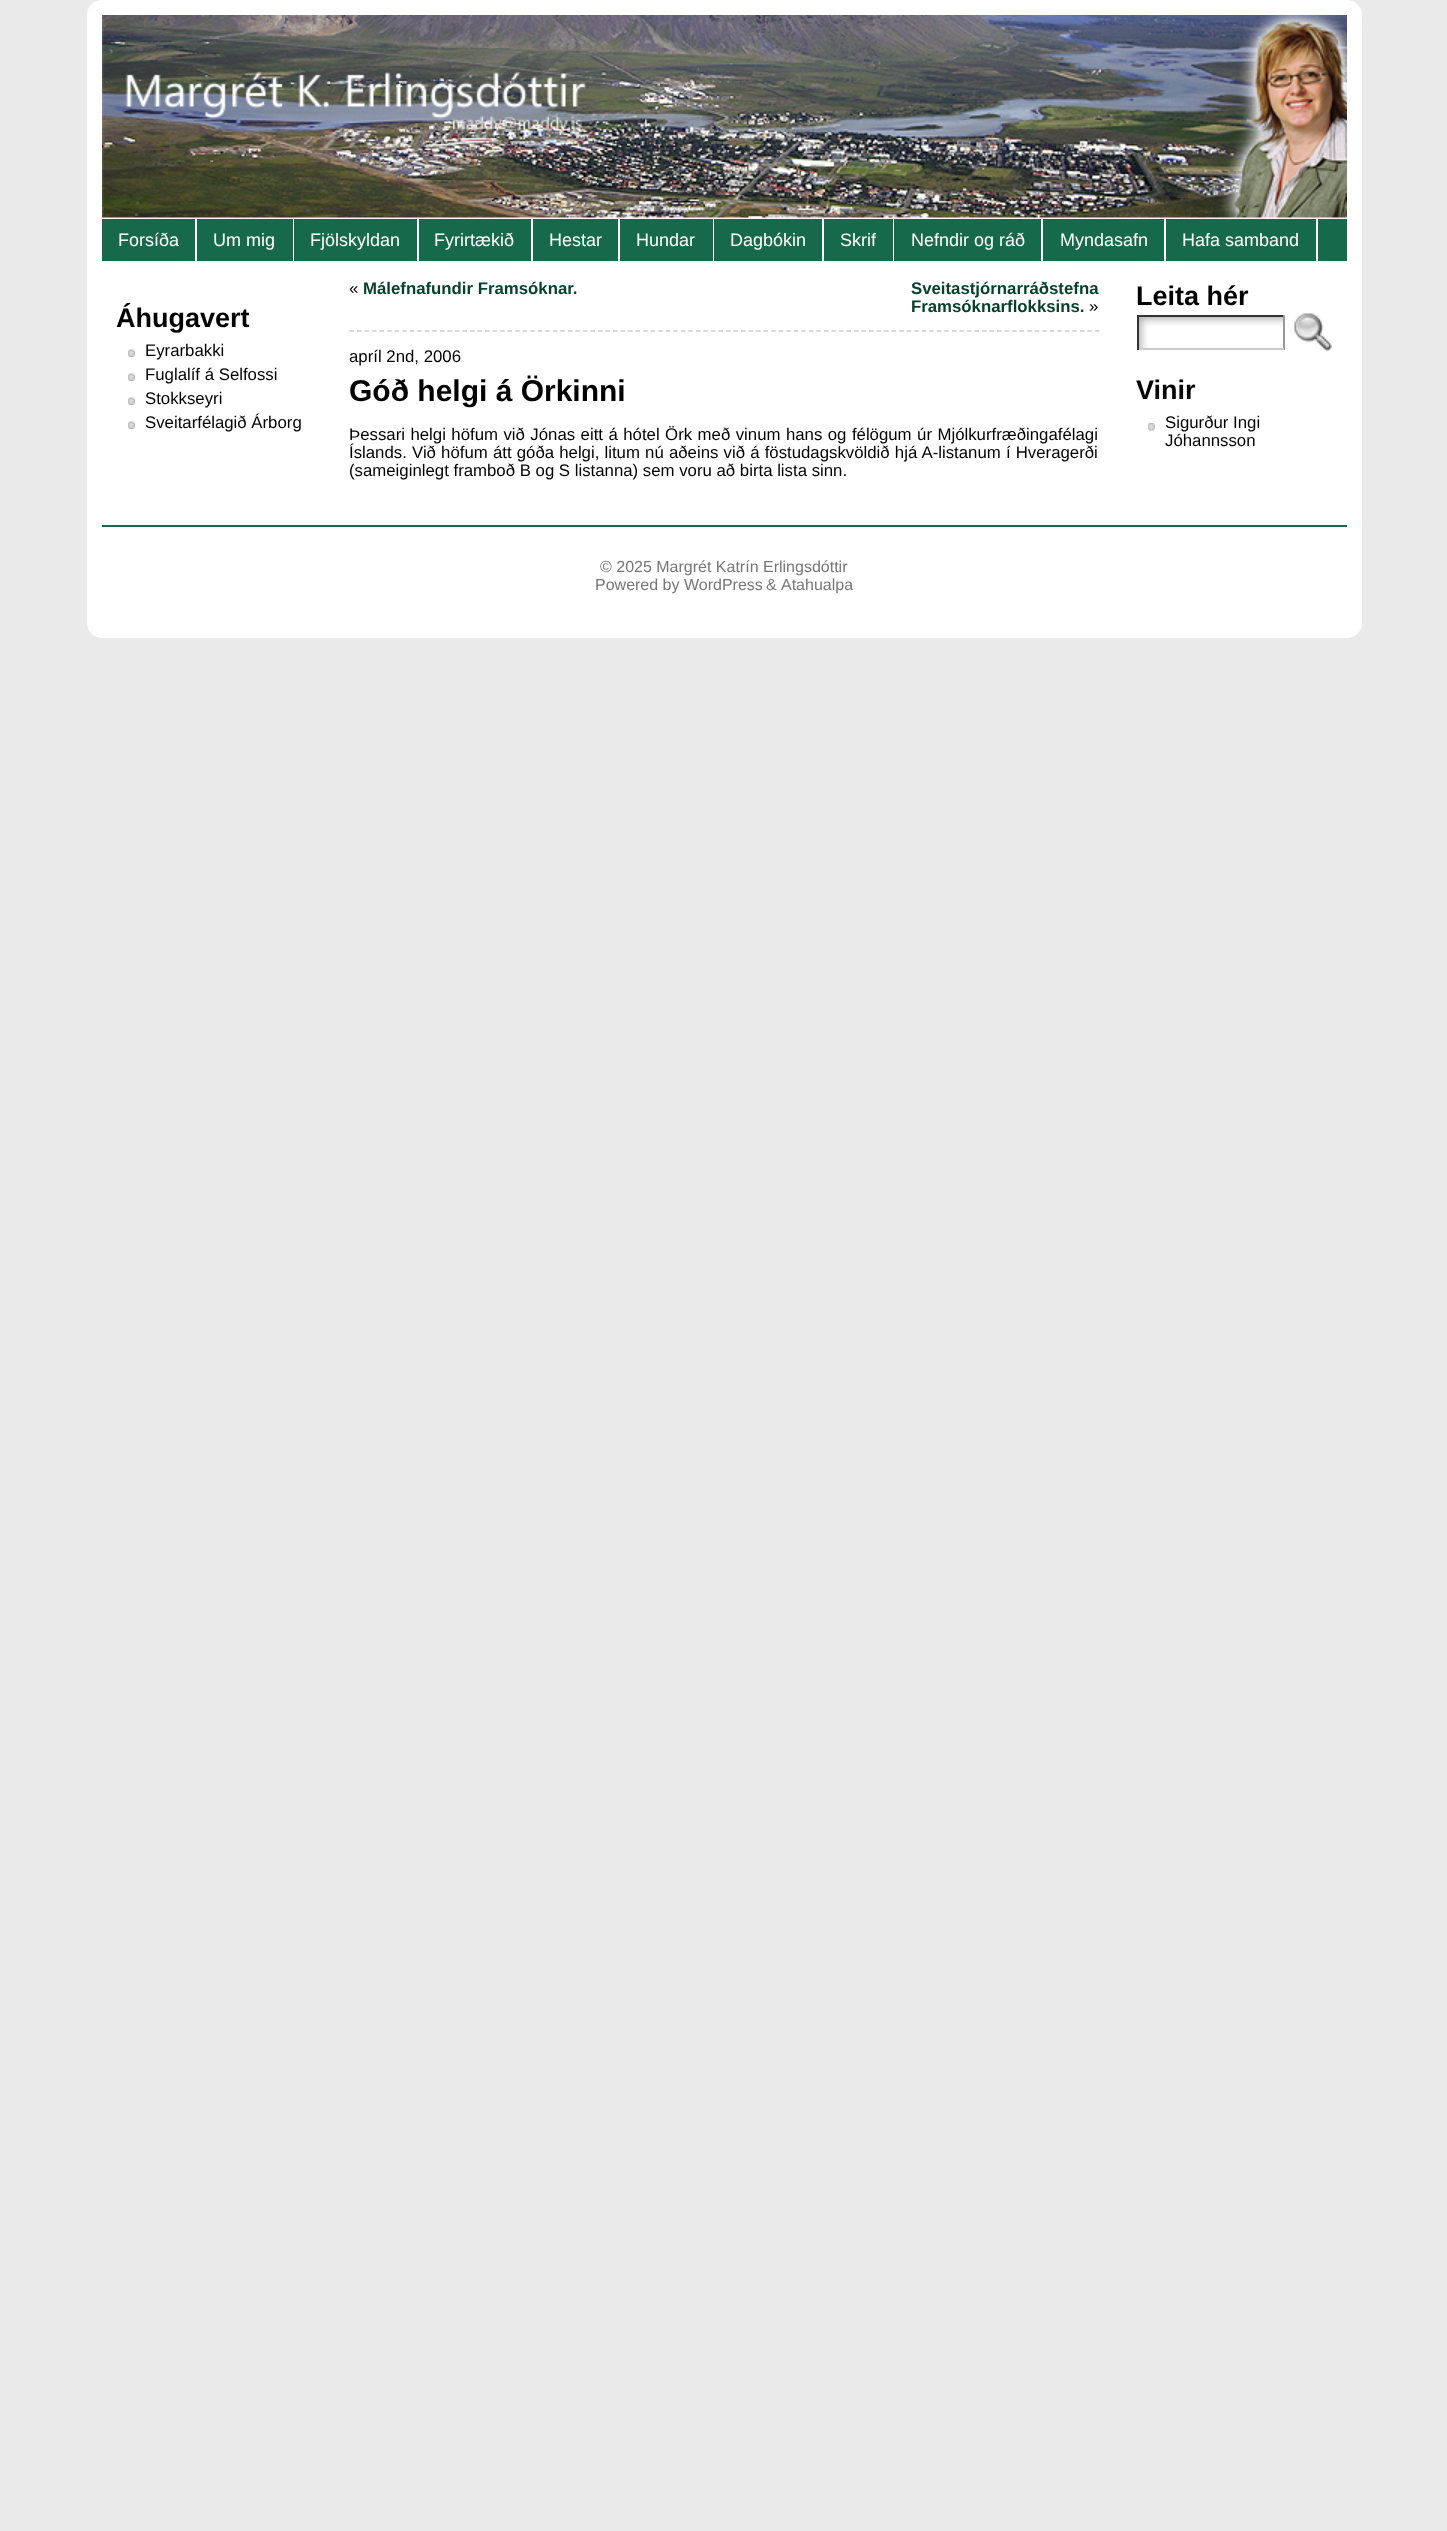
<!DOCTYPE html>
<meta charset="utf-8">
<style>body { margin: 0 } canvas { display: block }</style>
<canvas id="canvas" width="1447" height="2531"></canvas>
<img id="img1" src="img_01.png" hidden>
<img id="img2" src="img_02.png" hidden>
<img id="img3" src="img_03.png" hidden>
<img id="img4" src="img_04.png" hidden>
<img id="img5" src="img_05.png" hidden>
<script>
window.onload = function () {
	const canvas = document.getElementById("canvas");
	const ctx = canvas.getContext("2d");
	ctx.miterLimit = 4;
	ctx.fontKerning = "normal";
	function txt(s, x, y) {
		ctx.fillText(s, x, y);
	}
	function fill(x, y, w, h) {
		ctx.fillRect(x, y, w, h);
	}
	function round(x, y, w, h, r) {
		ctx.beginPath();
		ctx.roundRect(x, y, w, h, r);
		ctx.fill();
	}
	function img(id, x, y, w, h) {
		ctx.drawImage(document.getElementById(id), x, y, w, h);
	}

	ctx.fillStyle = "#EAEAEA";
	fill(0, 0, 1447, 2531);
	ctx.fillStyle = "#FFFFFF";
	round(87, 0, 1275, 638, 15);
	img("img1", 102, 15, 1245, 203);
	ctx.fillStyle = "#17694B";
	fill(102, 219, 1245, 42);
	ctx.fillStyle = "#FFFFFF";
	fill(195, 219, 2, 42);
	fill(293, 219, 1, 42);
	fill(417, 219, 2, 42);
	fill(531, 219, 2, 42);
	fill(618, 219, 2, 42);
	fill(713, 219, 1, 42);
	fill(822, 219, 2, 42);
	fill(893, 219, 1, 42);
	fill(1041, 219, 2, 42);
	fill(1164, 219, 2, 42);
	fill(1316, 219, 2, 42);
	img("img2", 128, 349, 7, 8);
	img("img2", 128, 373, 7, 8);
	img("img2", 128, 397, 7, 8);
	img("img2", 128, 421, 7, 8);
	ctx.beginPath();
	ctx.moveTo(349.5, 331);
	ctx.lineTo(1099.5, 331);
	ctx.strokeStyle = "#CCCCCC";
	ctx.lineWidth = 1.5;
	ctx.setLineDash([4.5, 3.03]);
	ctx.stroke();
	img("img3", 1139, 317, 144, 31);
	ctx.fillStyle = "#333333";
	fill(1137, 315, 147, 2);
	ctx.fillStyle = "#999999";
	fill(1283, 315, 2, 35);
	ctx.fillStyle = "#CCCCCC";
	fill(1137, 348, 147, 2);
	ctx.fillStyle = "#333333";
	fill(1137, 315, 2, 35);
	img("img4", 1294, 313, 38, 38);
	img("img5", 1148, 423, 7, 8);
	ctx.fillStyle = "#17694B";
	fill(102, 525, 1245, 2);
	ctx.font = "18px Liberation Sans";
	ctx.fillStyle = "#FFFFFF";
	txt("Forsíða", 118, 246);
	txt("Um mig", 213, 246);
	txt("Fjölskyldan", 310, 246);
	txt("Fyrirtækið", 434, 246);
	txt("Hestar", 549, 246);
	txt("Hundar", 636, 246);
	txt("Dagbókin", 730, 246);
	txt("Skrif", 840, 246);
	txt("Nefndir og ráð", 911, 246);
	txt("Myndasafn", 1060, 246);
	txt("Hafa samband", 1182, 246);
	ctx.font = "bold 27px Liberation Sans";
	ctx.fillStyle = "#000000";
	txt("Áhugavert", 116, 327);
	ctx.font = "16.8px Liberation Sans";
	txt("Eyrarbakki", 145, 356);
	txt("Fuglalíf á Selfossi", 145, 380);
	txt("Stokkseyri", 145, 404);
	txt("Sveitarfélagið Árborg", 145, 428);
	txt("«", 349, 294);
	ctx.font = "bold 16.8px Liberation Sans";
	ctx.fillStyle = "#06412B";
	txt("Málefnafundir Framsóknar.", 363, 294);
	txt("Sveitastjórnarráðstefna", 911, 294);
	txt("Framsóknarflokksins.", 911, 312);
	ctx.font = "16.8px Liberation Sans";
	ctx.fillStyle = "#000000";
	txt("»", 1089, 312);
	txt("apríl 2nd, 2006", 349, 362);
	ctx.font = "bold 30px Liberation Sans";
	txt("Góð helgi á Örkinni", 349, 401);
	ctx.wordSpacing = "0.8px";
	ctx.font = "16.8px Liberation Sans";
	txt("Þessari helgi höfum við Jónas eitt á hótel Örk með vinum hans og félögum úr Mjólkurfræðingafélagi", 349, 440);
	ctx.wordSpacing = "0.5px";
	txt("Íslands. Við höfum átt góða helgi, litum nú aðeins við á föstudagskvöldið hjá A-listanum í Hveragerði", 349, 458);
	ctx.wordSpacing = "0px";
	txt("(sameiginlegt framboð B og S listanna) sem voru að birta lista sinn.", 349, 476);
	ctx.font = "bold 27px Liberation Sans";
	txt("Leita hér", 1136, 305);
	txt("Vinir", 1136, 399);
	ctx.font = "16.8px Liberation Sans";
	txt("Sigurður Ingi", 1165, 428);
	txt("Jóhannsson", 1165, 446);
	ctx.font = "16px Liberation Sans";
	ctx.fillStyle = "#777777";
	txt("© 2025 Margrét Katrín Erlingsdóttir", 600, 572);
	txt("Powered by WordPress", 595, 590);
	txt("&", 766, 590);
	txt("Atahualpa", 781, 590);
};
</script>
